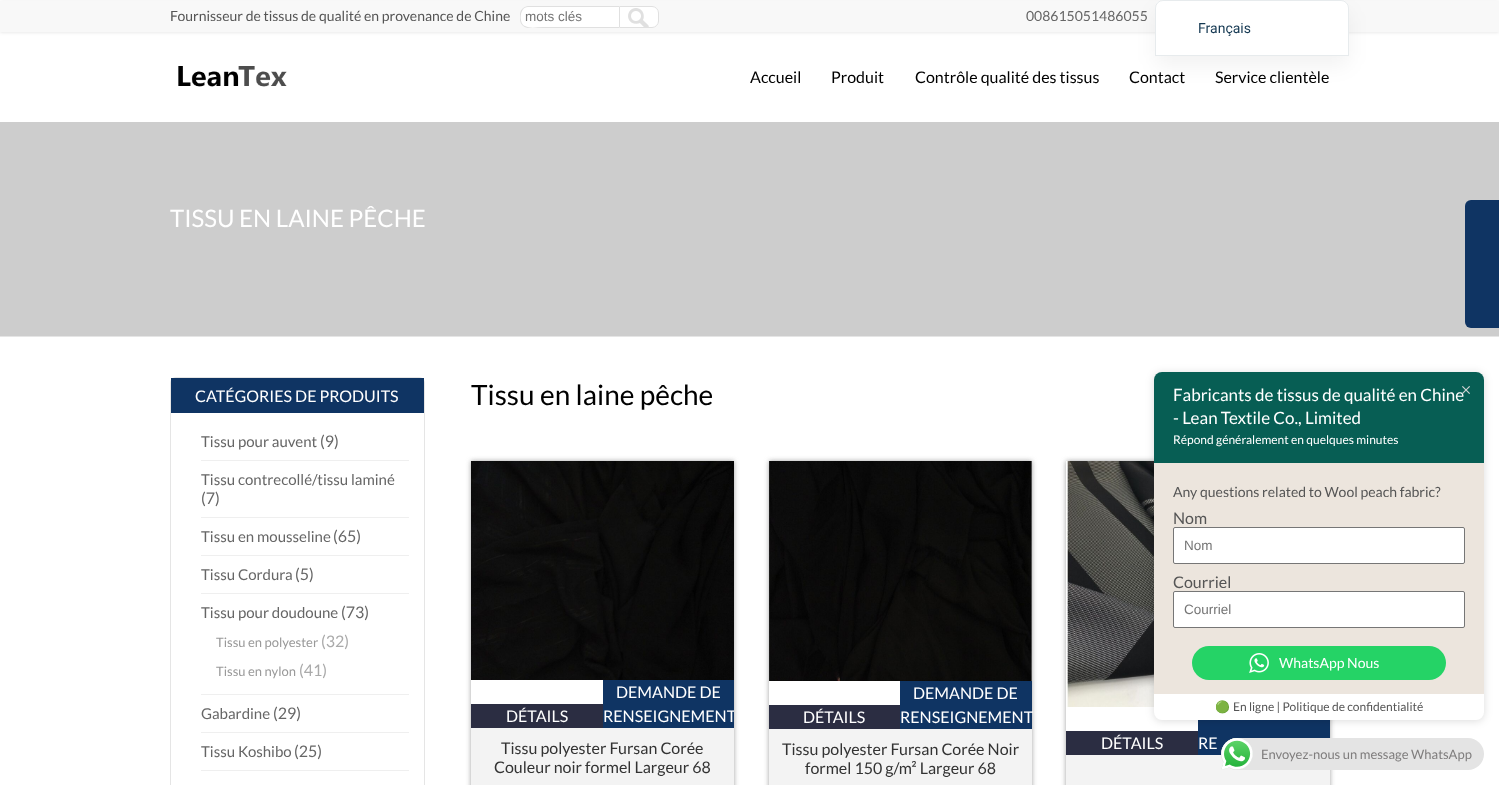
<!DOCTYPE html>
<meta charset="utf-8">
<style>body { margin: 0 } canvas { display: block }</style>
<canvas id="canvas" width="1499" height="785"></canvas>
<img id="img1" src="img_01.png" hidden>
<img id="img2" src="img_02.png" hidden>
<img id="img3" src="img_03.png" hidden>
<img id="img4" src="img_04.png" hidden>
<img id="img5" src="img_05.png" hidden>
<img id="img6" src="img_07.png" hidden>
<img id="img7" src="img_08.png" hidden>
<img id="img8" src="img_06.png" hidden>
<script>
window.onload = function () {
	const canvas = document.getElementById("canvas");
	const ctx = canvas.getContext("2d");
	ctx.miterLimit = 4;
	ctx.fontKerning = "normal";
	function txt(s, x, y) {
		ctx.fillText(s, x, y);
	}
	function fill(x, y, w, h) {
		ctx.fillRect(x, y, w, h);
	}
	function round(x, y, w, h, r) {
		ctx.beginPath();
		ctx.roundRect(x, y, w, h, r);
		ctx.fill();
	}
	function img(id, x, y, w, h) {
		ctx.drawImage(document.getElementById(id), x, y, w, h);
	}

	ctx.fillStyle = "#FFFFFF";
	fill(0, 0, 1499, 785);
	ctx.fillStyle = "rgba(51, 51, 51, 0.1)";
	ctx.filter = "blur(1.5px)";
	ctx.beginPath();
	ctx.rect(0, 1, 1499, 32);
	ctx.fill();
	ctx.filter = "none";
	ctx.fillStyle = "#F8F8F8";
	fill(0, 1, 1499, 31);
	ctx.fillStyle = "#FFFFFF";
	ctx.beginPath();
	ctx.roundRect(520, 6, 99, 22, [8, 0, 0, 8]);
	ctx.fill();
	ctx.fillStyle = "#E0E0E0";
	ctx.beginPath();
	ctx.moveTo(528, 6);
	ctx.lineTo(619, 6);
	ctx.lineTo(619, 28);
	ctx.lineTo(528, 28);
	ctx.bezierCurveTo(524, 28, 520, 24, 520, 20);
	ctx.lineTo(520, 14);
	ctx.bezierCurveTo(520, 10, 524, 6, 528, 6);
	ctx.closePath();
	ctx.moveTo(528, 7);
	ctx.lineTo(619, 7);
	ctx.lineTo(619, 27);
	ctx.lineTo(543, 27);
	ctx.bezierCurveTo(537, 27, 531, 29, 525, 26);
	ctx.bezierCurveTo(519, 24, 519, 7, 528, 7);
	ctx.closePath();
	ctx.fill("evenodd");
	ctx.fillStyle = "#FFFFFF";
	ctx.beginPath();
	ctx.roundRect(619, 6, 40, 22, [0, 7, 7, 0]);
	ctx.fill();
	img("img1", 628, 8, 21, 19);
	ctx.beginPath();
	ctx.roundRect(619.5, 6.5, 39, 21, [0, 6.5, 6.5, 0]);
	ctx.strokeStyle = "#E0E0E0";
	ctx.stroke();
	ctx.fillStyle = "rgba(0, 0, 0, 0.05)";
	ctx.filter = "blur(10px)";
	ctx.beginPath();
	ctx.roundRect(1155, 10, 194, 56, 8);
	ctx.fill();
	ctx.filter = "none";
	ctx.fillStyle = "#FFFFFF";
	ctx.beginPath();
	ctx.roundRect(1155, 0, 194, 56, [8, 8, 0, 0]);
	ctx.fill();
	ctx.beginPath();
	ctx.roundRect(1155.5, 0.5, 193, 55, [7.5, 7.5, 0, 0]);
	ctx.strokeStyle = "rgba(20, 56, 82, 0.1)";
	ctx.stroke();
	ctx.fillStyle = "#E5E5E5";
	fill(0, 336, 1499, 1);
	ctx.fillStyle = "#CDCDCD";
	fill(0, 122, 1499, 214);
	ctx.beginPath();
	ctx.roundRect(170.5, 377.5, 254, 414, 5.5);
	ctx.strokeStyle = "#E5E5E5";
	ctx.stroke();
	ctx.fillStyle = "#0F3463";
	fill(171, 378, 253, 35);
	ctx.fillStyle = "#EFEFEF";
	fill(201, 460, 208, 1);
	fill(201, 517, 208, 1);
	fill(201, 555, 208, 1);
	fill(201, 593, 208, 1);
	fill(201, 694, 208, 1);
	fill(201, 732, 208, 1);
	fill(201, 770, 208, 1);
	ctx.save();
	ctx.beginPath();
	ctx.moveTo(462, 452);
	ctx.lineTo(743, 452);
	ctx.lineTo(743, 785);
	ctx.lineTo(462, 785);
	ctx.closePath();
	ctx.moveTo(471, 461);
	ctx.lineTo(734, 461);
	ctx.lineTo(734, 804);
	ctx.lineTo(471, 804);
	ctx.closePath();
	ctx.clip("evenodd");
	ctx.fillStyle = "rgba(136, 136, 136, 0.8)";
	ctx.filter = "blur(2.5px)";
	ctx.beginPath();
	ctx.rect(471, 461, 263, 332);
	ctx.fill();
	ctx.filter = "none";
	ctx.restore();
	img("img2", 471, 461, 263, 219);
	ctx.fillStyle = "#2B2D42";
	fill(471, 704, 132, 24);
	ctx.fillStyle = "#0F3463";
	fill(603, 680, 131, 48);
	ctx.fillStyle = "#F3F3F3";
	fill(471, 728, 263, 57);
	ctx.save();
	ctx.beginPath();
	ctx.moveTo(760, 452);
	ctx.lineTo(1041, 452);
	ctx.lineTo(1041, 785);
	ctx.lineTo(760, 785);
	ctx.closePath();
	ctx.moveTo(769, 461);
	ctx.lineTo(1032, 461);
	ctx.lineTo(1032, 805);
	ctx.lineTo(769, 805);
	ctx.closePath();
	ctx.clip("evenodd");
	ctx.fillStyle = "rgba(136, 136, 136, 0.8)";
	ctx.filter = "blur(2.5px)";
	ctx.beginPath();
	ctx.rect(769, 461, 263, 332);
	ctx.fill();
	ctx.filter = "none";
	ctx.restore();
	img("img3", 769, 461, 263, 220);
	ctx.fillStyle = "#2B2D42";
	fill(769, 705, 131, 24);
	ctx.fillStyle = "#0F3463";
	fill(900, 681, 132, 48);
	ctx.fillStyle = "#F3F3F3";
	fill(769, 729, 263, 56);
	ctx.save();
	ctx.beginPath();
	ctx.moveTo(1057, 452);
	ctx.lineTo(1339, 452);
	ctx.lineTo(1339, 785);
	ctx.lineTo(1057, 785);
	ctx.closePath();
	ctx.moveTo(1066, 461);
	ctx.lineTo(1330, 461);
	ctx.lineTo(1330, 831);
	ctx.lineTo(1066, 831);
	ctx.closePath();
	ctx.clip("evenodd");
	ctx.fillStyle = "rgba(136, 136, 136, 0.8)";
	ctx.filter = "blur(2.5px)";
	ctx.beginPath();
	ctx.rect(1066, 461, 264, 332);
	ctx.fill();
	ctx.filter = "none";
	ctx.restore();
	img("img4", 1066, 461, 88, 246);
	ctx.fillStyle = "#2B2D42";
	fill(1066, 731, 132, 24);
	ctx.fillStyle = "#0F3463";
	fill(1198, 720, 132, 35);
	ctx.fillStyle = "#F3F3F3";
	fill(1066, 755, 264, 30);
	ctx.fillStyle = "rgba(0, 0, 0, 0.14)";
	ctx.filter = "blur(4.5px)";
	ctx.beginPath();
	ctx.roundRect(1154, 373, 330, 348, 8);
	ctx.fill();
	ctx.filter = "none";
	ctx.fillStyle = "#075E54";
	ctx.beginPath();
	ctx.roundRect(1154, 372, 330, 91, [8, 8, 0, 0]);
	ctx.fill();
	ctx.fillStyle = "#ECE5DD";
	fill(1154, 463, 330, 231);
	ctx.fillStyle = "#FFFFFF";
	ctx.beginPath();
	ctx.roundRect(1173.5, 527.5, 291, 36, 1.5);
	ctx.fill();
	ctx.strokeStyle = "#767676";
	ctx.stroke();
	ctx.beginPath();
	ctx.roundRect(1173.5, 591.5, 291, 36, 1.5);
	ctx.fill();
	ctx.stroke();
	ctx.fillStyle = "#25D366";
	round(1192, 646, 254, 34, 17);
	img("img5", 1249, 653, 20, 20);
	ctx.fillStyle = "#FFFFFF";
	ctx.beginPath();
	ctx.roundRect(1154, 694, 330, 26, [0, 0, 8, 8]);
	ctx.fill();
	ctx.fillStyle = "#E4E4E4";
	round(1221, 738, 263, 32, 16);
	img("img6", 1221, 738, 32, 32);
	img("img7", 178, 66, 109, 21);
	ctx.fillStyle = "#0F3463";
	ctx.beginPath();
	ctx.roundRect(1465, 200, 34, 128, [6, 0, 0, 6]);
	ctx.fill();
	ctx.font = "14px Lato";
	ctx.fillStyle = "#555555";
	txt("Fournisseur de tissus de qualité en provenance de Chine", 170, 21);
	ctx.font = "13.5px Liberation Sans";
	ctx.fillStyle = "#757575";
	txt("mots clés", 525, 21);
	ctx.font = "14px Lato";
	ctx.fillStyle = "#666666";
	txt("008615051486055", 1026, 21);
	ctx.font = "14px Roboto";
	ctx.fillStyle = "#143852";
	txt("Français", 1198, 33);
	ctx.font = "24px Lato";
	ctx.fillStyle = "#FFFFFF";
	txt("TISSU EN LAINE PÊCHE", 170, 227);
	ctx.font = "16px Lato";
	txt("CATÉGORIES DE PRODUITS", 195, 402);
	ctx.font = "15px Lato";
	ctx.fillStyle = "#666666";
	txt("Tissu pour auvent", 201, 447);
	ctx.font = "16px Lato";
	txt("(9)", 320, 447);
	ctx.font = "15px Lato";
	txt("Tissu contrecollé/tissu laminé", 201, 485);
	ctx.font = "16px Lato";
	txt("(7)", 201, 504);
	ctx.font = "15px Lato";
	txt("Tissu en mousseline", 201, 542);
	ctx.font = "16px Lato";
	txt("(65)", 333, 542);
	ctx.font = "15px Lato";
	txt("Tissu Cordura", 201, 580);
	ctx.font = "16px Lato";
	txt("(5)", 295, 580);
	ctx.font = "15px Lato";
	txt("Tissu pour doudoune", 201, 618);
	ctx.font = "16px Lato";
	txt("(73)", 341, 618);
	ctx.font = "13px Lato";
	ctx.fillStyle = "#999999";
	txt("Tissu en polyester", 216, 647);
	ctx.font = "16px Lato";
	ctx.fillStyle = "#AAAAAA";
	txt("(32)", 321, 647);
	ctx.font = "13px Lato";
	ctx.fillStyle = "#999999";
	txt("Tissu en nylon", 216, 676);
	ctx.font = "16px Lato";
	ctx.fillStyle = "#AAAAAA";
	txt("(41)", 299, 676);
	ctx.font = "15px Lato";
	ctx.fillStyle = "#666666";
	txt("Gabardine", 201, 719);
	ctx.font = "16px Lato";
	txt("(29)", 273, 719);
	ctx.font = "15px Lato";
	txt("Tissu Koshibo", 201, 757);
	ctx.font = "16px Lato";
	txt("(25)", 294, 757);
	ctx.font = "28px Lato";
	ctx.fillStyle = "#000000";
	txt("Tissu en laine pêche", 471, 405);
	ctx.font = "16px Lato";
	ctx.fillStyle = "#FFFFFF";
	txt("DÉTAILS", 506, 722);
	txt("DEMANDE DE", 616, 698);
	ctx.save();
	ctx.beginPath();
	ctx.rect(471, 461, 263, 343);
	ctx.clip();
	txt("RENSEIGNEMENT", 603, 722);
	ctx.restore();
	ctx.fillStyle = "#333333";
	txt("Tissu polyester Fursan Corée", 501, 754);
	txt("Couleur noir formel Largeur 68", 494, 773);
	ctx.fillStyle = "#FFFFFF";
	txt("DÉTAILS", 803, 723);
	txt("DEMANDE DE", 913, 699);
	txt("RENSEIGNEMENT", 900, 723);
	ctx.fillStyle = "#333333";
	txt("Tissu polyester Fursan Corée Noir", 782, 755);
	txt("formel 150 g/m² Largeur 68", 805, 774);
	ctx.fillStyle = "#FFFFFF";
	txt("DÉTAILS", 1101, 749);
	txt("RE", 1198, 749);
	ctx.font = "17px Lato";
	txt("Fabricants de tissus de qualité en Chine", 1173, 401);
	txt("- Lean Textile Co., Limited", 1173, 424);
	ctx.font = "12px Lato";
	txt("Répond généralement en quelques minutes", 1173, 444);
	ctx.font = "14px Lato";
	ctx.fillStyle = "#555555";
	txt("Any questions related to Wool peach fabric?", 1173, 497);
	ctx.font = "16px Lato";
	txt("Nom", 1173, 524);
	ctx.font = "13.5px Liberation Sans";
	ctx.fillStyle = "#757575";
	txt("Nom", 1184, 550);
	ctx.font = "16px Lato";
	ctx.fillStyle = "#555555";
	txt("Courriel", 1173, 588);
	ctx.font = "13.5px Liberation Sans";
	ctx.fillStyle = "#757575";
	txt("Courriel", 1184, 614);
	ctx.font = "14px Lato";
	ctx.fillStyle = "#FFFFFF";
	txt("WhatsApp Nous", 1279, 668);
	ctx.font = "12px Noto Color Emoji";
	ctx.fillStyle = "#555555";
	txt("🟢", 1215, 711);
	ctx.font = "12px Lato";
	txt("En ligne | Politique de confidentialité", 1233, 711);
	img("img8", 1462, 386, 8, 8);
	ctx.font = "13px Lato";
	ctx.fillStyle = "#7F7D7D";
	txt("Envoyez-nous un message WhatsApp", 1261, 759);
	ctx.font = "16px Lato";
	ctx.fillStyle = "#000000";
	txt("Accueil", 750, 83);
	txt("Produit", 831, 83);
	txt("Contrôle qualité des tissus", 915, 83);
	txt("Contact", 1129, 83);
	txt("Service clientèle", 1215, 83);
};
</script>
